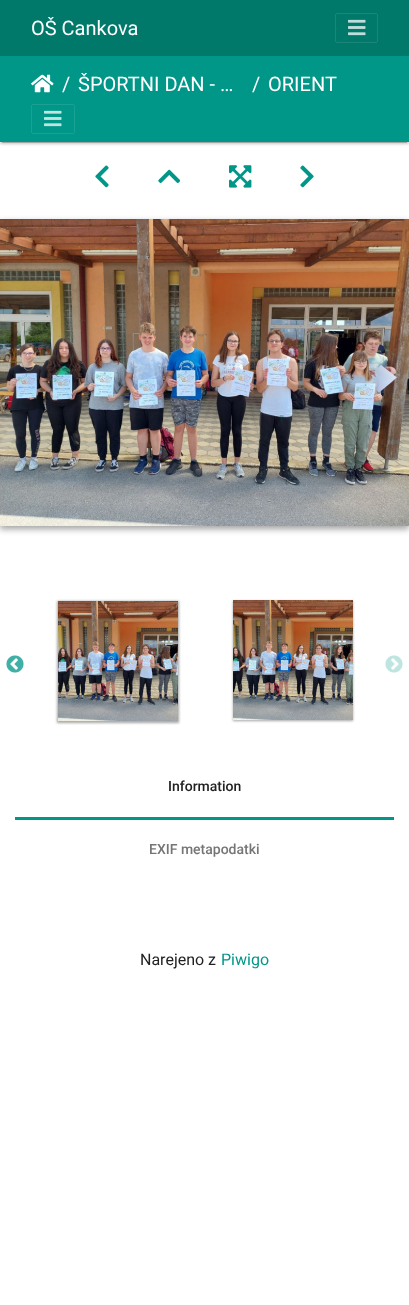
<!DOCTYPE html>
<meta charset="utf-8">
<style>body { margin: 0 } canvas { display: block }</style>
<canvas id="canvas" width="409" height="1305"></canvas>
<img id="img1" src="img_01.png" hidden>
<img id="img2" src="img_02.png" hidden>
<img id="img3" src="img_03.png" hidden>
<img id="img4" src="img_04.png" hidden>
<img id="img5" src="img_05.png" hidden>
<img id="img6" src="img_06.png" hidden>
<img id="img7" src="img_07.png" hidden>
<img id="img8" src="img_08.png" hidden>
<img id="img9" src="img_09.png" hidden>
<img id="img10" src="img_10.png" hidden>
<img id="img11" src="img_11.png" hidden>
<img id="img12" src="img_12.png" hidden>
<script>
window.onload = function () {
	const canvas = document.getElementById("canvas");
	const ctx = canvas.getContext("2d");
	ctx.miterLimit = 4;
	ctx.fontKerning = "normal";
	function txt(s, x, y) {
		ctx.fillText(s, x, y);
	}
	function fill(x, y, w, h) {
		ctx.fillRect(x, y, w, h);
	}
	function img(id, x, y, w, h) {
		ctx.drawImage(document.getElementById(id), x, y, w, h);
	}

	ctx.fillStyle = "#FFFFFF";
	fill(0, 0, 409, 1305);
	ctx.fillStyle = "rgba(0, 0, 0, 0.12)";
	ctx.filter = "blur(2.5px)";
	ctx.beginPath();
	ctx.rect(0, 57, 409, 86);
	ctx.fill();
	ctx.filter = "none";
	ctx.fillStyle = "rgba(0, 0, 0, 0.14)";
	ctx.filter = "blur(1px)";
	ctx.beginPath();
	ctx.rect(0, 58, 409, 86);
	ctx.fill();
	ctx.filter = "none";
	ctx.fillStyle = "#00796B";
	fill(0, 0, 409, 56);
	ctx.beginPath();
	ctx.roundRect(335.5, 13.5, 42, 29, 1.5);
	ctx.strokeStyle = "#1A867A";
	ctx.stroke();
	img("img1", 348, 19, 18, 17);
	ctx.fillStyle = "rgba(0, 0, 0, 0.2)";
	ctx.filter = "blur(0.5px)";
	ctx.beginPath();
	ctx.rect(2, 61, 405, 82);
	ctx.fill();
	ctx.filter = "none";
	ctx.fillStyle = "#009688";
	fill(0, 56, 409, 86);
	img("img2", 31, 74, 23, 19);
	ctx.beginPath();
	ctx.roundRect(31.5, 104.5, 43, 29, 1.5);
	ctx.strokeStyle = "#1AA194";
	ctx.stroke();
	img("img3", 44, 110, 18, 17);
	img("img4", 95, 165, 14, 23);
	img("img5", 158, 169, 23, 14);
	img("img6", 229, 165, 23, 23);
	img("img7", 300, 165, 14, 23);
	ctx.fillStyle = "rgba(0, 0, 0, 0.23)";
	ctx.filter = "blur(3px)";
	ctx.beginPath();
	ctx.rect(0, 222, 409, 307);
	ctx.fill();
	ctx.filter = "none";
	ctx.fillStyle = "rgba(0, 0, 0, 0.16)";
	ctx.filter = "blur(3px)";
	ctx.beginPath();
	ctx.rect(0, 222, 409, 307);
	ctx.fill();
	ctx.filter = "none";
	img("img8", 0, 219, 409, 307);
	img("img9", 6, 655, 18, 18);
	ctx.fillStyle = "rgba(0, 0, 0, 0.12)";
	ctx.filter = "blur(1.5px)";
	ctx.beginPath();
	ctx.rect(57, 601, 122, 122);
	ctx.fill();
	ctx.filter = "none";
	ctx.fillStyle = "rgba(0, 0, 0, 0.24)";
	ctx.filter = "blur(1px)";
	ctx.beginPath();
	ctx.rect(57, 601, 122, 122);
	ctx.fill();
	ctx.filter = "none";
	img("img10", 58, 601, 120, 120);
	ctx.fillStyle = "rgba(0, 0, 0, 0.12)";
	ctx.filter = "blur(1.5px)";
	ctx.beginPath();
	ctx.rect(233, 601, 120, 120);
	ctx.fill();
	ctx.filter = "none";
	ctx.fillStyle = "rgba(0, 0, 0, 0.24)";
	ctx.filter = "blur(1px)";
	ctx.beginPath();
	ctx.rect(233, 601, 120, 120);
	ctx.fill();
	ctx.filter = "none";
	img("img11", 233, 600, 120, 120);
	img("img12", 385, 655, 18, 18);
	ctx.fillStyle = "#009688";
	fill(15, 817, 379, 3);
	ctx.font = "20px Roboto";
	ctx.fillStyle = "#FFFFFF";
	txt("OŠ Cankova", 31, 35);
	txt("/", 62, 91);
	txt("ŠPORTNI DAN - …", 78, 91);
	txt("/", 252, 91);
	txt("ORIENT", 268, 91);
	ctx.font = "500 14px Roboto";
	ctx.fillStyle = "#212121";
	txt("Information", 168, 791);
	ctx.fillStyle = "#757575";
	txt("EXIF metapodatki", 149, 854);
	ctx.font = "16px Roboto";
	ctx.fillStyle = "#212121";
	txt("Narejeno z", 140, 965);
	ctx.fillStyle = "#009688";
	txt("Piwigo", 221, 965);
};
</script>
